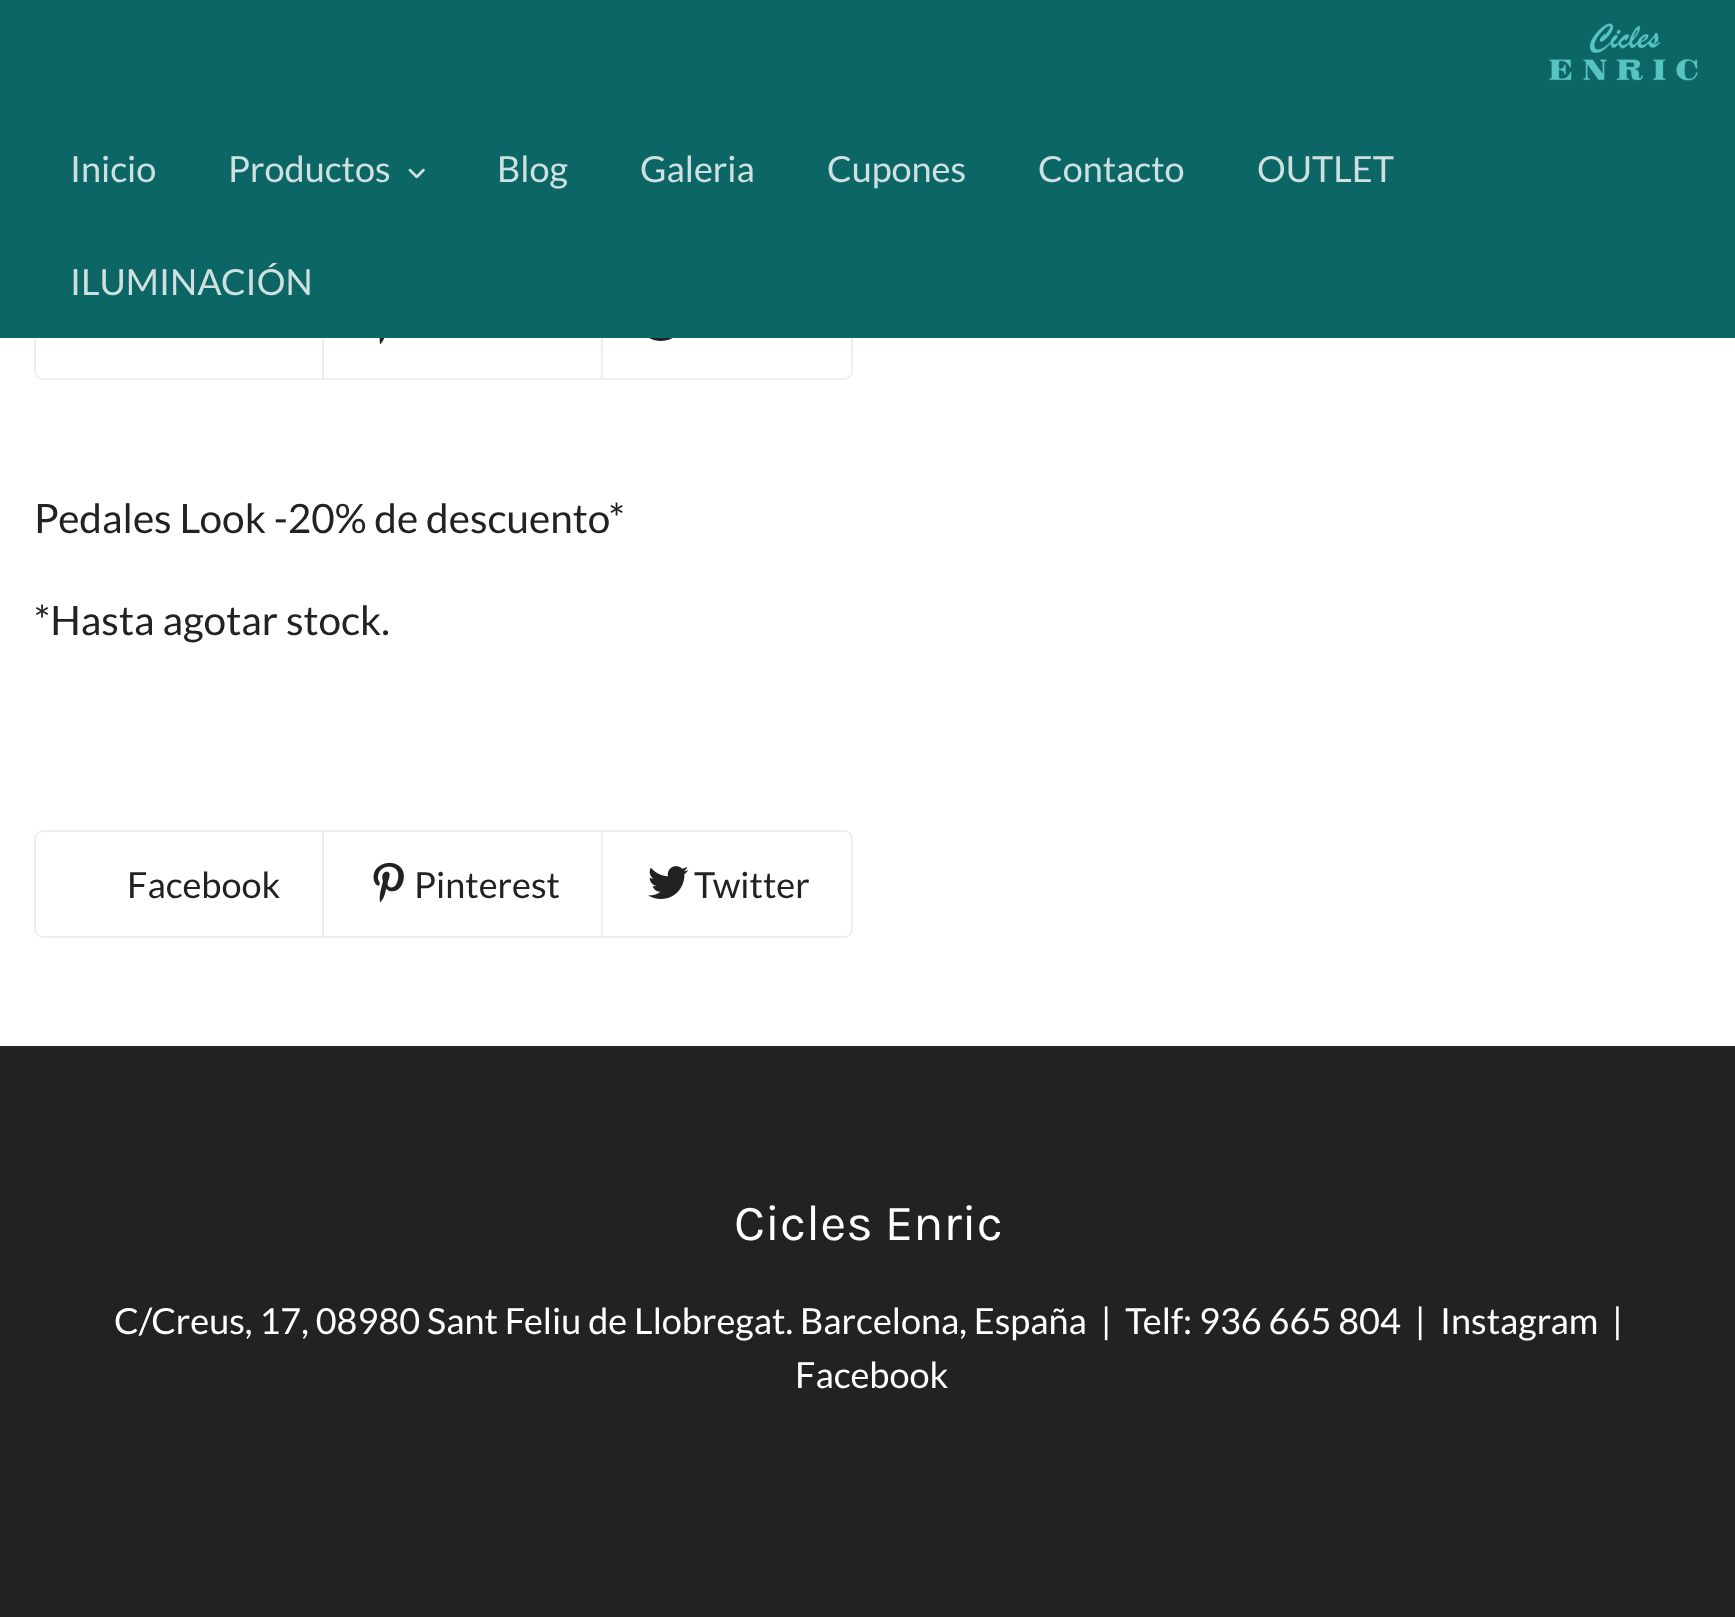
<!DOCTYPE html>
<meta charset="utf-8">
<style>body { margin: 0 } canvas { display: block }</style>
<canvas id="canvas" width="1735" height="1617"></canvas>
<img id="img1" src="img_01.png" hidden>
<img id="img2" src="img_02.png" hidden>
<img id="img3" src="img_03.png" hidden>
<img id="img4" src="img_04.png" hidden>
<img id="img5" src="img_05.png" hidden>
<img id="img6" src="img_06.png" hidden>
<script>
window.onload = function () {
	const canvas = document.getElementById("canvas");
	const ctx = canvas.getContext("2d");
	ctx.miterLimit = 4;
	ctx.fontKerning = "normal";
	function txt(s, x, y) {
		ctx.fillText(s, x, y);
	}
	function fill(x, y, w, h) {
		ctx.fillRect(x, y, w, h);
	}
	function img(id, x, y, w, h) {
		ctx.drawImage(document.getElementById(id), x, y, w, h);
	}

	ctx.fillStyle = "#FFFFFF";
	fill(0, 0, 1735, 1617);
	ctx.beginPath();
	ctx.roundRect(35, 273, 288, 106, [8, 0, 0, 8]);
	ctx.strokeStyle = "#EEEEEE";
	ctx.lineWidth = 2;
	ctx.stroke();
	ctx.beginPath();
	ctx.roundRect(36, 275, 286, 103, [7, 0, 0, 7]);
	ctx.fill();
	ctx.strokeRect(323, 273, 279, 106);
	ctx.beginPath();
	ctx.roundRect(602, 273, 250, 106, [0, 8, 8, 0]);
	ctx.stroke();
	ctx.beginPath();
	ctx.roundRect(603, 275, 248, 103, [0, 7, 7, 0]);
	ctx.fill();
	ctx.fillStyle = "#0D6666";
	fill(0, 0, 1735, 338);
	img("img1", 1549, 23, 149, 58);
	img("img2", 408, 168, 17, 11);
	img("img3", 379, 338, 6, 7);
	img("img4", 649, 338, 24, 3);
	ctx.beginPath();
	ctx.roundRect(35, 831, 288, 106, [8, 0, 0, 8]);
	ctx.stroke();
	ctx.fillStyle = "#FFFFFF";
	ctx.beginPath();
	ctx.roundRect(36, 833, 286, 103, [7, 0, 0, 7]);
	ctx.fill();
	ctx.strokeRect(323, 831, 279, 106);
	img("img5", 373, 862, 31, 41);
	ctx.beginPath();
	ctx.roundRect(602, 831, 250, 106, [0, 8, 8, 0]);
	ctx.stroke();
	ctx.beginPath();
	ctx.roundRect(603, 833, 248, 103, [0, 7, 7, 0]);
	ctx.fill();
	img("img6", 648, 866, 41, 33);
	ctx.fillStyle = "#222222";
	fill(0, 1046, 1735, 571);
	ctx.font = "36px Lato";
	ctx.fillStyle = "#CFE0E0";
	txt("Inicio", 70, 182);
	txt("Productos", 228, 182);
	txt("Blog", 497, 182);
	txt("Galeria", 640, 182);
	txt("Cupones", 827, 182);
	txt("Contacto", 1038, 182);
	txt("OUTLET", 1257, 182);
	txt("ILUMINACIÓN", 70, 295);
	ctx.font = "40.5px Lato";
	ctx.fillStyle = "#222222";
	txt("Pedales Look -20% de descuento*", 34, 533);
	txt("*Hasta agotar stock.", 34, 635);
	ctx.font = "36px Lato";
	txt("Facebook", 127, 898);
	txt("Pinterest", 414, 898);
	txt("Twitter", 694, 898);
	ctx.font = "50.5px Karla";
	ctx.fillStyle = "#FFFFFF";
	txt("Cicles Enric", 734, 1240);
	ctx.font = "36px Lato";
	txt("C/Creus, 17, 08980 Sant Feliu de Llobregat. Barcelona, España  |  Telf: 936 665 804  |", 114, 1334);
	txt("Instagram", 1440, 1334);
	txt("|", 1612, 1334);
	txt("Facebook", 795, 1388);
};
</script>
